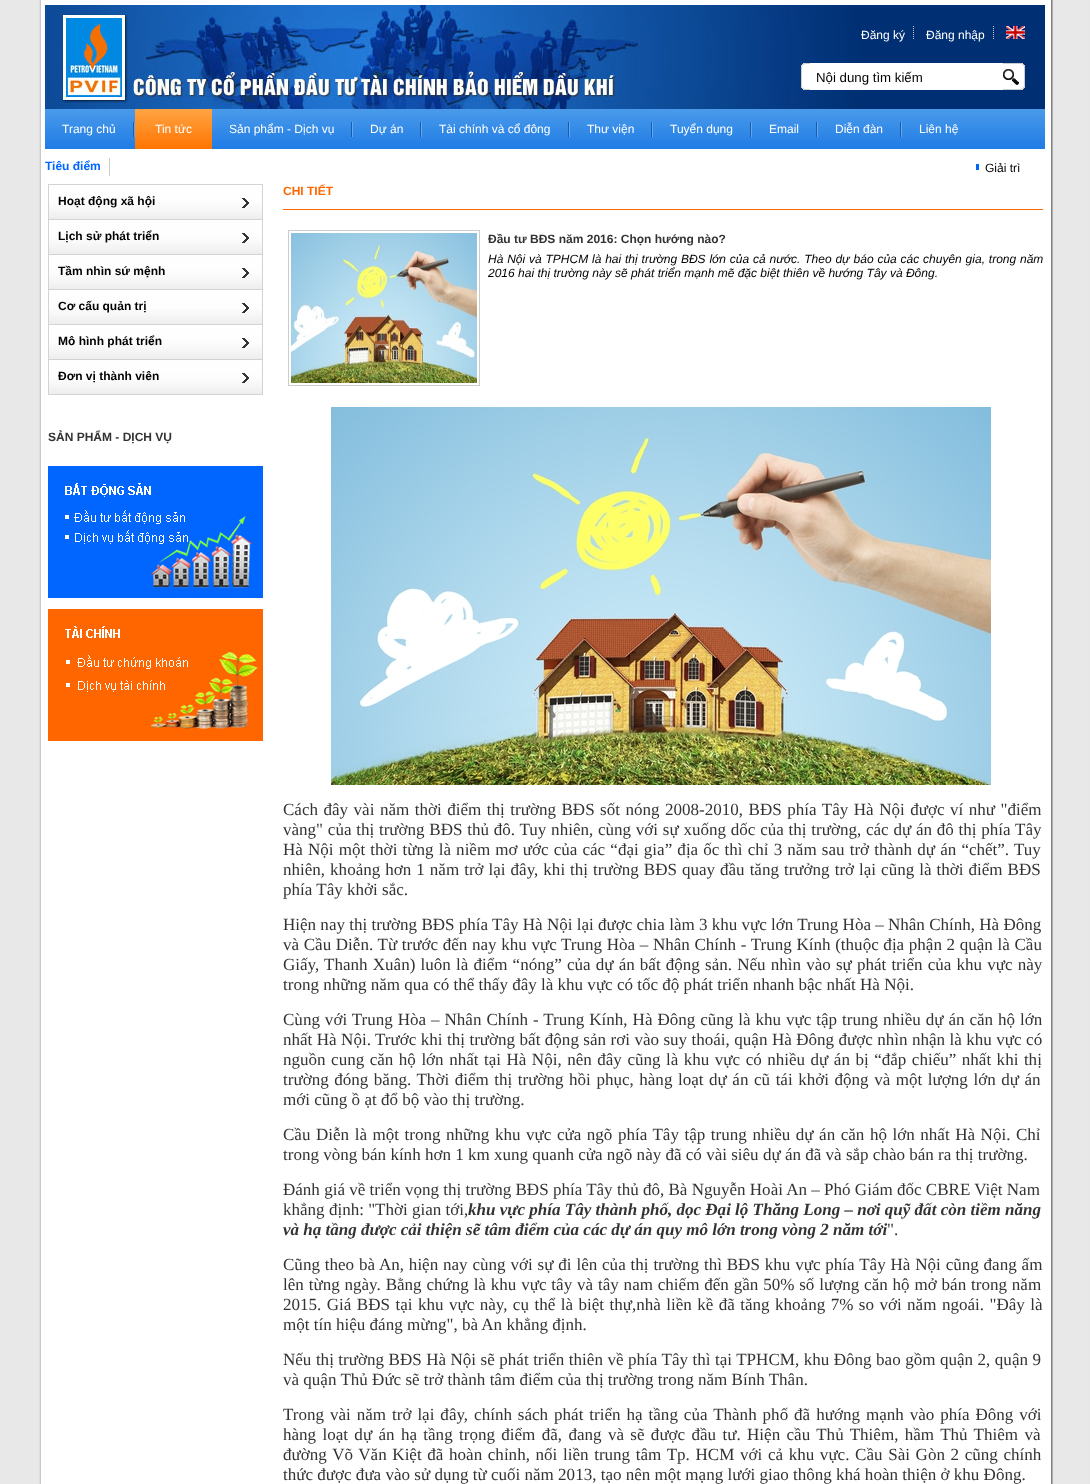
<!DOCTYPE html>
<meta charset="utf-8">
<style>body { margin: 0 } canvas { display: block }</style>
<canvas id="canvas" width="1090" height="1484"></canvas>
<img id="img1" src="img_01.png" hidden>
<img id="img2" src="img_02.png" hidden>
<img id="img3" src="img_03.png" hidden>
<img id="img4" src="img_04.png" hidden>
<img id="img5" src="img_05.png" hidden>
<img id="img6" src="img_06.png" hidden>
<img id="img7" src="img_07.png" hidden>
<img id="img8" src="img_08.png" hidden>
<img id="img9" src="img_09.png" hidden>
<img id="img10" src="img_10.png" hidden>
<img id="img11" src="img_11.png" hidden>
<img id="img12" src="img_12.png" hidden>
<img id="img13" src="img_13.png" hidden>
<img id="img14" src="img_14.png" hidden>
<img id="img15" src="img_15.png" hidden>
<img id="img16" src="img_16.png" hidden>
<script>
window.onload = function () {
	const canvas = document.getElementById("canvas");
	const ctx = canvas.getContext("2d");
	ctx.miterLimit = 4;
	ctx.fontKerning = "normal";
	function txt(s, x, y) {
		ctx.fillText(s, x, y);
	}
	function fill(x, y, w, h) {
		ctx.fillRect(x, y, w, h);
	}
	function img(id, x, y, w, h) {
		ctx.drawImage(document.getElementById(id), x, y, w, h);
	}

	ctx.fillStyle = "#E8E8E8";
	fill(0, 0, 1090, 1484);
	img("img1", 39, 0, 1014, 184);
	img("img2", 45, 5, 1000, 104);
	img("img3", 913, 26, 1, 13);
	img("img3", 993, 26, 1, 13);
	img("img4", 1006, 26, 19, 13);
	img("img5", 801, 63, 9, 27);
	ctx.fillStyle = "#FFFFFF";
	fill(810, 63, 193, 27);
	img("img6", 1003, 63, 22, 27);
	img("img7", 45, 109, 1000, 40);
	img("img8", 133, 122, 2, 15);
	img("img9", 135, 109, 77, 40);
	img("img8", 351, 122, 2, 15);
	img("img8", 420, 122, 2, 15);
	img("img8", 568, 122, 2, 15);
	img("img8", 651, 122, 2, 15);
	img("img8", 750, 122, 2, 15);
	img("img8", 816, 122, 2, 15);
	img("img8", 900, 122, 2, 15);
	ctx.fillStyle = "#CCCCCC";
	fill(109, 158, 1, 18);
	ctx.fillStyle = "#0066FF";
	fill(976, 164, 3, 6);
	img("img10", 39, 184, 1014, 1300);
	img("img11", 48, 184, 215, 35);
	img("img11", 48, 219, 215, 35);
	img("img11", 48, 254, 215, 35);
	img("img11", 48, 289, 215, 35);
	img("img11", 48, 324, 215, 35);
	img("img12", 48, 359, 215, 36);
	img("img13", 48, 466, 215, 132);
	img("img14", 48, 609, 215, 132);
	ctx.fillStyle = "#FF6600";
	fill(283, 209, 760, 1);
	ctx.strokeStyle = "#CCCCCC";
	ctx.strokeRect(288.5, 230.5, 191, 155);
	img("img15", 291, 233, 186, 150);
	img("img16", 331, 407, 660, 378);
	ctx.font = "12px Liberation Sans";
	ctx.fillStyle = "#FFFFFF";
	txt("Đăng ký", 861, 39);
	txt("Đăng nhập", 926, 39);
	ctx.font = "13.25px Liberation Sans";
	ctx.fillStyle = "#000000";
	txt("Nội dung tìm kiếm", 816, 82);
	ctx.font = "12px Liberation Sans";
	ctx.fillStyle = "#FFFFFF";
	txt("Trang chủ", 62, 133);
	txt("Tin tức", 155, 133);
	txt("Sản phẩm - Dịch vụ", 229, 133);
	txt("Dự án", 370, 133);
	txt("Tài chính và cổ đông", 439, 133);
	txt("Thư viện", 587, 133);
	txt("Tuyển dụng", 670, 133);
	txt("Email", 769, 133);
	txt("Diễn đàn", 835, 133);
	txt("Liên hệ", 919, 133);
	ctx.font = "bold 12px Liberation Sans";
	ctx.fillStyle = "#0066FF";
	txt("Tiêu điểm", 45, 170);
	ctx.font = "12px Liberation Sans";
	ctx.fillStyle = "#000000";
	txt("Giải trì", 985, 172);
	ctx.font = "bold 12px Liberation Sans";
	txt("Hoạt động xã hội", 58, 205);
	txt("Lịch sử phát triển", 58, 240);
	txt("Tầm nhìn sứ mệnh", 58, 275);
	txt("Cơ cấu quản trị", 58, 310);
	txt("Mô hình phát triển", 58, 345);
	txt("Đơn vị thành viên", 58, 380);
	ctx.fillStyle = "#333333";
	txt("SẢN PHẨM - DỊCH VỤ", 48, 441);
	ctx.fillStyle = "#FF6600";
	txt("CHI TIẾT", 283, 195);
	ctx.fillStyle = "#333333";
	txt("Đầu tư BĐS năm 2016: Chọn hướng nào?", 488, 243);
	ctx.wordSpacing = "0.5px";
	ctx.font = "italic 12px Liberation Sans";
	ctx.fillStyle = "#000000";
	txt("Hà Nội và TPHCM là hai thị trường BĐS lớn của cả nước. Theo dự báo của các chuyên gia, trong năm", 488, 263);
	ctx.wordSpacing = "0px";
	txt("2016 hai thị trường này sẽ phát triển mạnh mẽ đặc biệt thiên về hướng Tây và Đông.", 488, 277);
	ctx.wordSpacing = "1.25px";
	ctx.font = "17.05px Liberation Serif";
	ctx.fillStyle = "#333333";
	txt("Cách đây vài năm thời điểm thị trường BĐS sốt nóng 2008-2010, BĐS phía Tây Hà Nội được ví như \"điểm", 283, 815);
	ctx.wordSpacing = "0.5px";
	txt("vàng\" của thị trường BĐS thủ đô. Tuy nhiên, cùng với sự xuống dốc của thị trường, các dự án đô thị phía Tây", 283, 835);
	ctx.wordSpacing = "0.9px";
	txt("Hà Nội một thời từng là niềm mơ ước của các “đại gia” địa ốc thì chỉ 3 năm sau trở thành dự án “chết”. Tuy", 283, 855);
	ctx.wordSpacing = "0.75px";
	txt("nhiên, khoảng hơn 1 năm trở lại đây, khi thị trường BĐS quay đầu tăng trưởng trở lại cũng là thời điểm BĐS", 283, 875);
	ctx.wordSpacing = "0px";
	txt("phía Tây khởi sắc.", 283, 895);
	txt("Hiện nay thị trường BĐS phía Tây Hà Nội lại được chia làm 3 khu vực lớn Trung Hòa – Nhân Chính, Hà Đông", 283, 930);
	ctx.wordSpacing = "0.4px";
	txt("và Cầu Diễn. Từ trước đến nay khu vực Trung Hòa – Nhân Chính - Trung Kính (thuộc địa phận 2 quận là Cầu", 283, 950);
	ctx.wordSpacing = "0.9px";
	txt("Giấy, Thanh Xuân) luôn là điểm “nóng” của dự án bất động sản. Nếu nhìn vào sự phát triển của khu vực này", 283, 970);
	ctx.wordSpacing = "0px";
	txt("trong những năm qua có thể thấy đây là khu vực có tốc độ phát triển nhanh bậc nhất Hà Nội.", 283, 990);
	ctx.wordSpacing = "0.7px";
	txt("Cùng với Trung Hòa – Nhân Chính - Trung Kính, Hà Đông cũng là khu vực tập trung nhiều dự án căn hộ lớn", 283, 1025);
	ctx.wordSpacing = "0.2px";
	txt("nhất Hà Nội. Trước khi thị trường bất động sản rơi vào suy thoái, quận Hà Đông được nhìn nhận là khu vực có", 283, 1045);
	ctx.wordSpacing = "1.25px";
	txt("nguồn cung căn hộ lớn nhất tại Hà Nội, nên đây cũng là khu vực có nhiều dự án bị “đắp chiếu” nhất khi thị", 283, 1065);
	ctx.wordSpacing = "1.3px";
	txt("trường đóng băng. Thời điểm thị trường hồi phục, hàng loạt dự án cũ tái khởi động và một lượng lớn dự án", 283, 1085);
	ctx.wordSpacing = "0px";
	txt("mới cũng ồ ạt đổ bộ vào thị trường.", 283, 1105);
	ctx.wordSpacing = "1.3px";
	txt("Cầu Diễn là một trong những khu vực cửa ngõ phía Tây tập trung nhiều dự án căn hộ lớn nhất Hà Nội. Chỉ", 283, 1140);
	ctx.wordSpacing = "0px";
	txt("trong vòng bán kính hơn 1 km xung quanh cửa ngõ này đã có vài siêu dự án đã và sắp chào bán ra thị trường.", 283, 1160);
	txt("Đánh giá về triển vọng thị trường BĐS phía Tây thủ đô, Bà Nguyễn Hoài An – Phó Giám đốc CBRE Việt Nam", 283, 1195);
	txt("khẳng định: \"Thời gian tới,", 283, 1215);
	ctx.font = "italic bold 17.05px Liberation Serif";
	txt("khu vực phía Tây thành phố, dọc Đại lộ Thăng Long – nơi quỹ đất còn tiềm năng", 468, 1215);
	txt("và hạ tầng được cải thiện sẽ tâm điểm của các dự án quy mô lớn trong vòng 2 năm tới", 283, 1235);
	ctx.font = "17.05px Liberation Serif";
	txt("\".", 887, 1235);
	ctx.wordSpacing = "0.6px";
	txt("Cũng theo bà An, hiện nay cùng với sự đi lên của thị trường thì BĐS khu vực phía Tây Hà Nội cũng đang ấm", 283, 1270);
	txt("lên từng ngày. Bằng chứng là khu vực tây và tây nam chiếm đến gần 50% số lượng căn hộ mở bán trong năm", 283, 1290);
	ctx.wordSpacing = "1.2px";
	txt("2015. Giá BĐS tại khu vực này, cụ thể là biệt thự,nhà liền kề đã tăng khoảng 7% so với năm ngoái. \"Đây là", 283, 1310);
	ctx.wordSpacing = "0px";
	txt("một tín hiệu đáng mừng\", bà An khẳng định.", 283, 1330);
	ctx.wordSpacing = "0.25px";
	txt("Nếu thị trường BĐS Hà Nội sẽ phát triển thiên về phía Tây thì tại TPHCM, khu Đông bao gồm quận 2, quận 9", 283, 1365);
	ctx.wordSpacing = "0px";
	txt("và quận Thủ Đức sẽ trở thành tâm điểm của thị trường trong năm Bính Thân.", 283, 1385);
	ctx.wordSpacing = "1.7px";
	txt("Trong vài năm trở lại đây, chính sách phát triển hạ tầng của Thành phố đã hướng mạnh vào phía Đông với", 283, 1420);
	ctx.wordSpacing = "2.1px";
	txt("hàng loạt dự án hạ tầng trọng điểm đã, đang và sẽ được đầu tư. Hiện cầu Thủ Thiêm, hầm Thủ Thiêm và", 283, 1440);
	ctx.wordSpacing = "1.4px";
	txt("đường Võ Văn Kiệt đã hoàn chỉnh, nối liền trung tâm Tp. HCM với cả khu vực. Cầu Sài Gòn 2 cũng chính", 283, 1460);
	ctx.wordSpacing = "0px";
	txt("thức được đưa vào sử dụng từ cuối năm 2013, tạo nên một mạng lưới giao thông khá hoàn thiện ở khu Đông.", 283, 1480);
};
</script>
